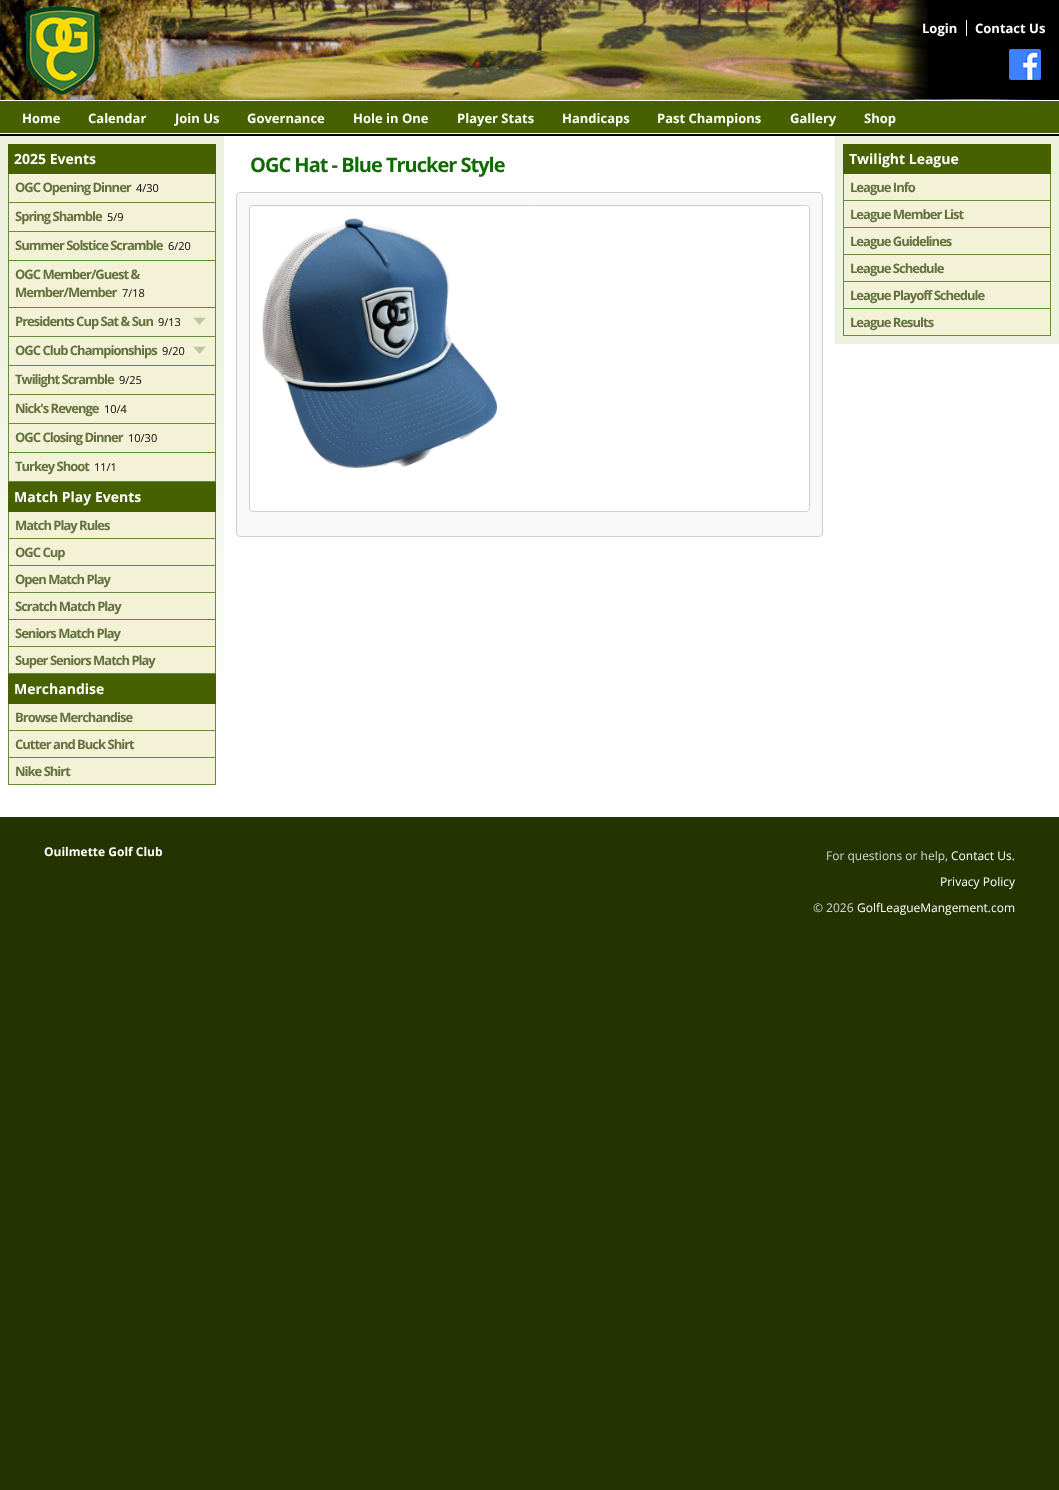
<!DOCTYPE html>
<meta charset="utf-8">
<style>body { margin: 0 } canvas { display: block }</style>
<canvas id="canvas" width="1059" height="1490"></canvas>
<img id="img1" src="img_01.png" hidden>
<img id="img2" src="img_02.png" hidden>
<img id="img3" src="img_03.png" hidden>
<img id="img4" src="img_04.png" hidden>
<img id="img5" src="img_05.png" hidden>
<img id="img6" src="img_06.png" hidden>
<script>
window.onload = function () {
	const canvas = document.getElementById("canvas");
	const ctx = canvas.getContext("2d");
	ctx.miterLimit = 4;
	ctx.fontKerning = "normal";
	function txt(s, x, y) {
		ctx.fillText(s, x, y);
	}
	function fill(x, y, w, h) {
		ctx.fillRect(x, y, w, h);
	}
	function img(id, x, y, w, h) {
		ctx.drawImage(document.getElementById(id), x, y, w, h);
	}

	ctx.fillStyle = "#253300";
	fill(0, 0, 1059, 1490);
	ctx.fillStyle = "#000000";
	fill(0, 0, 1059, 136);
	img("img1", 0, 0, 1056, 100);
	img("img2", 26, 6, 73, 89);
	ctx.fillStyle = "#476100";
	fill(0, 101, 1059, 32);
	ctx.fillStyle = "#FFFFFF";
	fill(0, 100, 1059, 1);
	fill(0, 133, 1059, 1);
	fill(966, 20, 1, 16);
	img("img3", 1009, 49, 32, 31);
	fill(0, 136, 1059, 681);
	img("img4", 0, 136, 224, 544);
	ctx.fillStyle = "#476100";
	fill(8, 144, 208, 30);
	ctx.fillStyle = "#648C39";
	fill(215, 174, 1, 308);
	fill(8, 174, 1, 308);
	ctx.fillStyle = "#F4F2D6";
	fill(9, 174, 206, 28);
	ctx.fillStyle = "#648C39";
	fill(9, 202, 206, 1);
	ctx.fillStyle = "#F4F2D6";
	fill(9, 203, 206, 28);
	ctx.fillStyle = "#648C39";
	fill(9, 231, 206, 1);
	ctx.fillStyle = "#F4F2D6";
	fill(9, 232, 206, 28);
	ctx.fillStyle = "#648C39";
	fill(9, 260, 206, 1);
	ctx.fillStyle = "#F4F2D6";
	fill(9, 261, 206, 46);
	ctx.fillStyle = "#648C39";
	fill(9, 307, 206, 1);
	ctx.fillStyle = "#F4F2D6";
	fill(9, 308, 206, 28);
	img("img5", 193, 317, 13, 8);
	ctx.fillStyle = "#648C39";
	fill(9, 336, 206, 1);
	ctx.fillStyle = "#F4F2D6";
	fill(9, 337, 206, 28);
	img("img5", 193, 346, 13, 8);
	ctx.fillStyle = "#648C39";
	fill(9, 365, 206, 1);
	ctx.fillStyle = "#F4F2D6";
	fill(9, 366, 206, 28);
	ctx.fillStyle = "#648C39";
	fill(9, 394, 206, 1);
	ctx.fillStyle = "#F4F2D6";
	fill(9, 395, 206, 28);
	ctx.fillStyle = "#648C39";
	fill(9, 423, 206, 1);
	ctx.fillStyle = "#F4F2D6";
	fill(9, 424, 206, 28);
	ctx.fillStyle = "#648C39";
	fill(9, 452, 206, 1);
	ctx.fillStyle = "#F4F2D6";
	fill(9, 453, 206, 28);
	ctx.fillStyle = "#648C39";
	fill(9, 481, 206, 1);
	ctx.fillStyle = "#476100";
	fill(8, 482, 208, 30);
	ctx.fillStyle = "#648C39";
	fill(215, 512, 1, 162);
	fill(8, 512, 1, 162);
	ctx.fillStyle = "#F4F2D6";
	fill(9, 512, 206, 26);
	ctx.fillStyle = "#648C39";
	fill(9, 538, 206, 1);
	ctx.fillStyle = "#F4F2D6";
	fill(9, 539, 206, 26);
	ctx.fillStyle = "#648C39";
	fill(9, 565, 206, 1);
	ctx.fillStyle = "#F4F2D6";
	fill(9, 566, 206, 26);
	ctx.fillStyle = "#648C39";
	fill(9, 592, 206, 1);
	ctx.fillStyle = "#F4F2D6";
	fill(9, 593, 206, 26);
	ctx.fillStyle = "#648C39";
	fill(9, 619, 206, 1);
	ctx.fillStyle = "#F4F2D6";
	fill(9, 620, 206, 26);
	ctx.fillStyle = "#648C39";
	fill(9, 646, 206, 1);
	ctx.fillStyle = "#F4F2D6";
	fill(9, 647, 206, 26);
	ctx.fillStyle = "#648C39";
	fill(9, 673, 206, 1);
	ctx.fillStyle = "#476100";
	fill(8, 674, 208, 30);
	ctx.fillStyle = "#648C39";
	fill(215, 704, 1, 81);
	fill(8, 704, 1, 81);
	ctx.fillStyle = "#F4F2D6";
	fill(9, 704, 206, 26);
	ctx.fillStyle = "#648C39";
	fill(9, 730, 206, 1);
	ctx.fillStyle = "#F4F2D6";
	fill(9, 731, 206, 26);
	ctx.fillStyle = "#648C39";
	fill(9, 757, 206, 1);
	ctx.fillStyle = "#F4F2D6";
	fill(9, 758, 206, 26);
	ctx.fillStyle = "#648C39";
	fill(9, 784, 206, 1);
	ctx.fillStyle = "#F8F8F8";
	ctx.beginPath();
	ctx.roundRect(236.5, 192.5, 586, 344, 3.5);
	ctx.fill();
	ctx.strokeStyle = "#CFCFCF";
	ctx.stroke();
	ctx.fillStyle = "#FFFFFF";
	ctx.beginPath();
	ctx.roundRect(249.5, 205.5, 560, 306, 3.5);
	ctx.fill();
	ctx.stroke();
	img("img6", 262, 218, 235, 251);
	ctx.fillStyle = "#EDF2DE";
	fill(835, 136, 224, 208);
	ctx.fillStyle = "#476100";
	fill(843, 144, 208, 30);
	ctx.fillStyle = "#648C39";
	fill(1050, 174, 1, 162);
	fill(843, 174, 1, 162);
	ctx.fillStyle = "#F4F2D6";
	fill(844, 174, 206, 26);
	ctx.fillStyle = "#648C39";
	fill(844, 200, 206, 1);
	ctx.fillStyle = "#F4F2D6";
	fill(844, 201, 206, 26);
	ctx.fillStyle = "#648C39";
	fill(844, 227, 206, 1);
	ctx.fillStyle = "#F4F2D6";
	fill(844, 228, 206, 26);
	ctx.fillStyle = "#648C39";
	fill(844, 254, 206, 1);
	ctx.fillStyle = "#F4F2D6";
	fill(844, 255, 206, 26);
	ctx.fillStyle = "#648C39";
	fill(844, 281, 206, 1);
	ctx.fillStyle = "#F4F2D6";
	fill(844, 282, 206, 26);
	ctx.fillStyle = "#648C39";
	fill(844, 308, 206, 1);
	ctx.fillStyle = "#F4F2D6";
	fill(844, 309, 206, 26);
	ctx.fillStyle = "#648C39";
	fill(844, 335, 206, 1);
	ctx.font = "bold 13px Open Sans";
	ctx.fillStyle = "#FFFFFF";
	txt("Login", 922, 33);
	txt("Contact Us", 975, 33);
	ctx.fillStyle = "#FAFFF8";
	txt("Home", 22, 123);
	txt("Calendar", 88, 123);
	txt("Join Us", 175, 123);
	txt("Governance", 247, 123);
	txt("Hole in One", 353, 123);
	txt("Player Stats", 457, 123);
	txt("Handicaps", 562, 123);
	txt("Past Champions", 657, 123);
	txt("Gallery", 790, 123);
	txt("Shop", 864, 123);
	ctx.font = "bold 14px Open Sans";
	ctx.fillStyle = "#FFFFFF";
	txt("2025 Events", 14, 164);
	ctx.letterSpacing = "-1px";
	ctx.font = "bold 13px Open Sans";
	ctx.fillStyle = "#62713F";
	txt("OGC Opening Dinner", 15, 192);
	ctx.letterSpacing = "0px";
	ctx.font = "11px Open Sans";
	ctx.fillStyle = "#000000";
	txt("4/30", 136, 192);
	ctx.letterSpacing = "-1px";
	ctx.font = "bold 13px Open Sans";
	ctx.fillStyle = "#62713F";
	txt("Spring Shamble", 15, 221);
	ctx.letterSpacing = "0px";
	ctx.font = "11px Open Sans";
	ctx.fillStyle = "#000000";
	txt("5/9", 107, 221);
	ctx.letterSpacing = "-1px";
	ctx.font = "bold 13px Open Sans";
	ctx.fillStyle = "#62713F";
	txt("Summer Solstice Scramble", 15, 250);
	ctx.letterSpacing = "0px";
	ctx.font = "11px Open Sans";
	ctx.fillStyle = "#000000";
	txt("6/20", 168, 250);
	ctx.letterSpacing = "-1px";
	ctx.font = "bold 13px Open Sans";
	ctx.fillStyle = "#62713F";
	txt("OGC Member/Guest &", 15, 279);
	txt("Member/Member", 15, 297);
	ctx.letterSpacing = "0px";
	ctx.font = "11px Open Sans";
	ctx.fillStyle = "#000000";
	txt("7/18", 122, 297);
	ctx.letterSpacing = "-1px";
	ctx.font = "bold 13px Open Sans";
	ctx.fillStyle = "#62713F";
	txt("Presidents Cup Sat & Sun", 15, 326);
	ctx.letterSpacing = "0px";
	ctx.font = "11px Open Sans";
	ctx.fillStyle = "#000000";
	txt("9/13", 158, 326);
	ctx.letterSpacing = "-1px";
	ctx.font = "bold 13px Open Sans";
	ctx.fillStyle = "#62713F";
	txt("OGC Club Championships", 15, 355);
	ctx.letterSpacing = "0px";
	ctx.font = "11px Open Sans";
	ctx.fillStyle = "#000000";
	txt("9/20", 162, 355);
	ctx.letterSpacing = "-1px";
	ctx.font = "bold 13px Open Sans";
	ctx.fillStyle = "#62713F";
	txt("Twilight Scramble", 15, 384);
	ctx.letterSpacing = "0px";
	ctx.font = "11px Open Sans";
	ctx.fillStyle = "#000000";
	txt("9/25", 119, 384);
	ctx.letterSpacing = "-1px";
	ctx.font = "bold 13px Open Sans";
	ctx.fillStyle = "#62713F";
	txt("Nick's Revenge", 15, 413);
	ctx.letterSpacing = "0px";
	ctx.font = "11px Open Sans";
	ctx.fillStyle = "#000000";
	txt("10/4", 104, 413);
	ctx.letterSpacing = "-1px";
	ctx.font = "bold 13px Open Sans";
	ctx.fillStyle = "#62713F";
	txt("OGC Closing Dinner", 15, 442);
	ctx.letterSpacing = "0px";
	ctx.font = "11px Open Sans";
	ctx.fillStyle = "#000000";
	txt("10/30", 128, 442);
	ctx.letterSpacing = "-1px";
	ctx.font = "bold 13px Open Sans";
	ctx.fillStyle = "#62713F";
	txt("Turkey Shoot", 15, 471);
	ctx.letterSpacing = "0px";
	ctx.font = "11px Open Sans";
	ctx.fillStyle = "#000000";
	txt("11/1", 94, 471);
	ctx.font = "bold 14px Open Sans";
	ctx.fillStyle = "#FFFFFF";
	txt("Match Play Events", 14, 502);
	ctx.letterSpacing = "-1px";
	ctx.font = "bold 13px Open Sans";
	ctx.fillStyle = "#62713F";
	txt("Match Play Rules", 15, 530);
	txt("OGC Cup", 15, 557);
	txt("Open Match Play", 15, 584);
	txt("Scratch Match Play", 15, 611);
	txt("Seniors Match Play", 15, 638);
	txt("Super Seniors Match Play", 15, 665);
	ctx.letterSpacing = "0px";
	ctx.font = "bold 14px Open Sans";
	ctx.fillStyle = "#FFFFFF";
	txt("Merchandise", 14, 694);
	ctx.letterSpacing = "-1px";
	ctx.font = "bold 13px Open Sans";
	ctx.fillStyle = "#62713F";
	txt("Browse Merchandise", 15, 722);
	txt("Cutter and Buck Shirt", 15, 749);
	txt("Nike Shirt", 15, 776);
	ctx.font = "bold 20px Open Sans";
	ctx.fillStyle = "#116B04";
	txt("OGC Hat - Blue Trucker Style", 250, 172);
	ctx.letterSpacing = "0px";
	ctx.font = "bold 14px Open Sans";
	ctx.fillStyle = "#FFFFFF";
	txt("Twilight League", 849, 164);
	ctx.letterSpacing = "-1px";
	ctx.font = "bold 13px Open Sans";
	ctx.fillStyle = "#62713F";
	txt("League Info", 850, 192);
	txt("League Member List", 850, 219);
	txt("League Guidelines", 850, 246);
	txt("League Schedule", 850, 273);
	txt("League Playoff Schedule", 850, 300);
	txt("League Results", 850, 327);
	ctx.letterSpacing = "0px";
	ctx.font = "bold 12px Open Sans";
	ctx.fillStyle = "#FFFFFF";
	txt("Ouilmette Golf Club", 44, 856);
	ctx.font = "12px Open Sans";
	ctx.fillStyle = "#D6D6D6";
	txt("For questions or help,", 826, 860);
	ctx.fillStyle = "#FFFFFF";
	txt("Contact Us.", 951, 860);
	txt("Privacy Policy", 940, 886);
	ctx.fillStyle = "#D6D6D6";
	txt("© 2026", 813, 912);
	ctx.fillStyle = "#FFFFFF";
	txt("GolfLeagueMangement.com", 857, 912);
};
</script>
